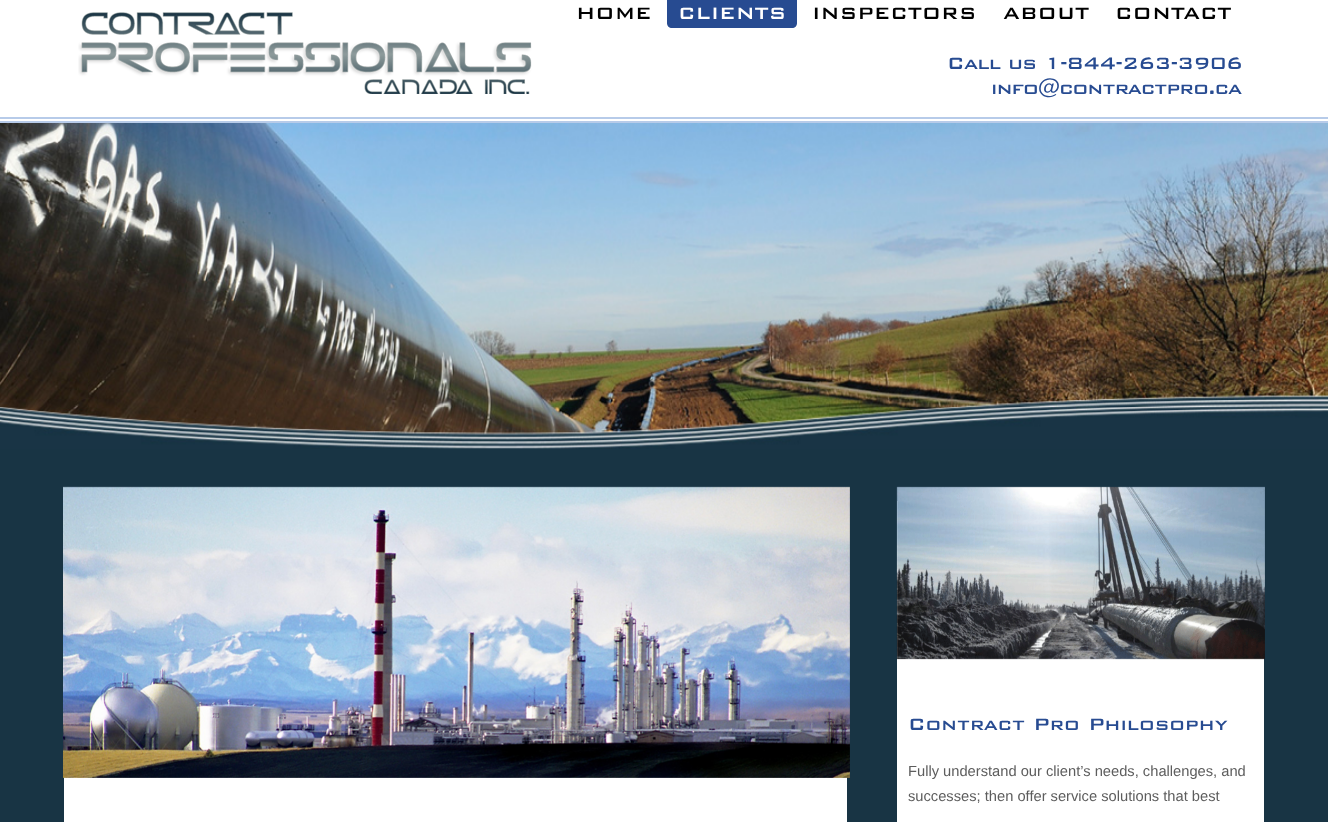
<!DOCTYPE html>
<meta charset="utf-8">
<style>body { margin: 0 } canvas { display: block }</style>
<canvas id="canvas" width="1328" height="822"></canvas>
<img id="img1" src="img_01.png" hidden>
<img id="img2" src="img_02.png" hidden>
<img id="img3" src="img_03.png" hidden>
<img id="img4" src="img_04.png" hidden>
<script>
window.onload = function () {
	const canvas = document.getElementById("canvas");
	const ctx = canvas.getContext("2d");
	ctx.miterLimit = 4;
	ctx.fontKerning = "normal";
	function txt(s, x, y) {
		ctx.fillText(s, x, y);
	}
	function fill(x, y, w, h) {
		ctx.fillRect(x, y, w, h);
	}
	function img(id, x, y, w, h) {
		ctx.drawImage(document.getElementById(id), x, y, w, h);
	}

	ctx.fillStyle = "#183444";
	fill(0, 0, 1328, 822);
	ctx.fillStyle = "#FFFFFF";
	fill(0, 0, 1328, 121);
	ctx.fillStyle = "#B7CBE9";
	fill(0, 117, 1328, 2);
	fill(0, 121, 1328, 2);
	img("img1", 78, 12, 454, 82);
	ctx.fillStyle = "#274B91";
	ctx.beginPath();
	ctx.moveTo(667, -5);
	ctx.lineTo(797, -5);
	ctx.lineTo(797, 23);
	ctx.bezierCurveTo(797, 26, 795, 28, 792, 28);
	ctx.lineTo(672, 28);
	ctx.bezierCurveTo(669, 28, 667, 26, 667, 23);
	ctx.closePath();
	ctx.fill();
	img("img2", 0, 123, 1328, 326);
	ctx.fillStyle = "#FFFFFF";
	fill(64, 777, 783, 45);
	img("img3", 63, 486, 787, 292);
	fill(897, 501, 367, 321);
	img("img4", 896, 486, 369, 174);
	ctx.font = "500 22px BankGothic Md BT";
	ctx.fillStyle = "#000000";
	txt("HOME", 576, 19);
	ctx.fillStyle = "#FFFFFF";
	txt("CLIENTS", 678, 19);
	ctx.fillStyle = "#000000";
	txt("INSPECTORS", 812, 19);
	txt("ABOUT", 1003, 19);
	txt("CONTACT", 1115, 19);
	ctx.letterSpacing = "-0.75px";
	ctx.fillStyle = "#274B91";
	txt("Call us 1-844-263-3906", 947, 69);
	txt("info@contractpro.ca", 991, 94);
	ctx.letterSpacing = "0px";
	txt("Contract Pro Philosophy", 908, 730);
	ctx.font = "14.7px Liberation Sans";
	ctx.fillStyle = "#5D5D5D";
	txt("Fully understand our client’s needs, challenges, and", 908, 776);
	txt("successes; then offer service solutions that best", 908, 801);
};
</script>
